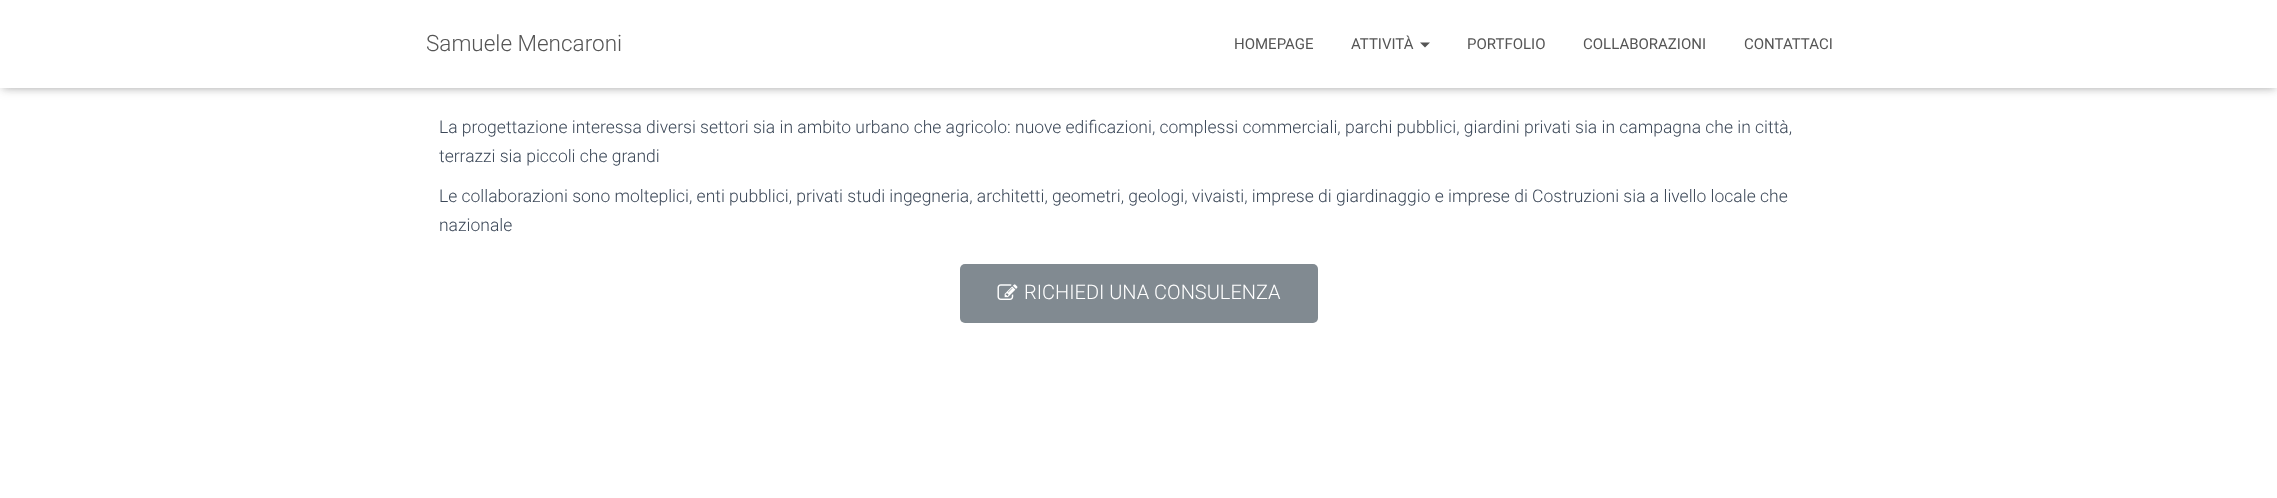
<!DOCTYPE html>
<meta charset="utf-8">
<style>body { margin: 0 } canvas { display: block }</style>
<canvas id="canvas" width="2277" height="498"></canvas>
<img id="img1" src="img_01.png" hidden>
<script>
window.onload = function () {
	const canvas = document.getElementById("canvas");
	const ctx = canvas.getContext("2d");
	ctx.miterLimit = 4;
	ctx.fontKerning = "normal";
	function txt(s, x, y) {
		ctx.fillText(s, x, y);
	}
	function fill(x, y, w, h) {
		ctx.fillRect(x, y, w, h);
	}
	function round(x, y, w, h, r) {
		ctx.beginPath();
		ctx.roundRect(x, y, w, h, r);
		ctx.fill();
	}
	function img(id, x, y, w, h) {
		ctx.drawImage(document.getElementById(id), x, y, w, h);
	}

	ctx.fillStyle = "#FFFFFF";
	fill(0, 0, 2277, 498);
	ctx.fillStyle = "rgba(0, 0, 0, 0.1)";
	ctx.filter = "blur(3px)";
	ctx.beginPath();
	ctx.rect(3, 8, 2272, 82);
	ctx.fill();
	ctx.filter = "none";
	ctx.fillStyle = "rgba(0, 0, 0, 0.12)";
	ctx.filter = "blur(6px)";
	ctx.beginPath();
	ctx.rect(0, 1, 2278, 88);
	ctx.fill();
	ctx.filter = "none";
	ctx.fillStyle = "rgba(0, 0, 0, 0.42)";
	ctx.filter = "blur(6px)";
	ctx.beginPath();
	ctx.rect(8, 9, 2262, 72);
	ctx.fill();
	ctx.filter = "none";
	ctx.fillStyle = "#FFFFFF";
	fill(0, 0, 2277, 88);
	ctx.fillStyle = "#555555";
	ctx.beginPath();
	ctx.moveTo(1420, 42.5);
	ctx.lineTo(1430, 42.5);
	ctx.lineTo(1425, 47.5);
	ctx.closePath();
	ctx.fill();
	ctx.fillStyle = "#818A91";
	round(960, 264, 358, 59, 5);
	img("img1", 997, 284, 21, 16);
	ctx.font = "300 22.5px Roboto";
	ctx.fillStyle = "#555555";
	txt("Samuele Mencaroni", 426, 51);
	ctx.font = "15px Roboto";
	txt("HOMEPAGE", 1234, 49);
	txt("ATTIVITÀ", 1351, 49);
	txt("PORTFOLIO", 1467, 49);
	txt("COLLABORAZIONI", 1583, 49);
	txt("CONTATTACI", 1744, 49);
	ctx.font = "300 17.5px Roboto";
	ctx.fillStyle = "#3C4858";
	txt("La progettazione interessa diversi settori sia in ambito urbano che agricolo: nuove edificazioni, complessi commerciali, parchi pubblici, giardini privati sia in campagna che in città,", 439, 133);
	txt("terrazzi sia piccoli che grandi", 439, 162);
	txt("Le collaborazioni sono molteplici, enti pubblici, privati studi ingegneria, architetti, geometri, geologi, vivaisti, imprese di giardinaggio e imprese di Costruzioni sia a livello locale che", 439, 202);
	txt("nazionale", 439, 231);
	ctx.font = "300 20px Roboto";
	ctx.fillStyle = "#FFFFFF";
	txt("RICHIEDI UNA CONSULENZA", 1024, 299);
};
</script>
